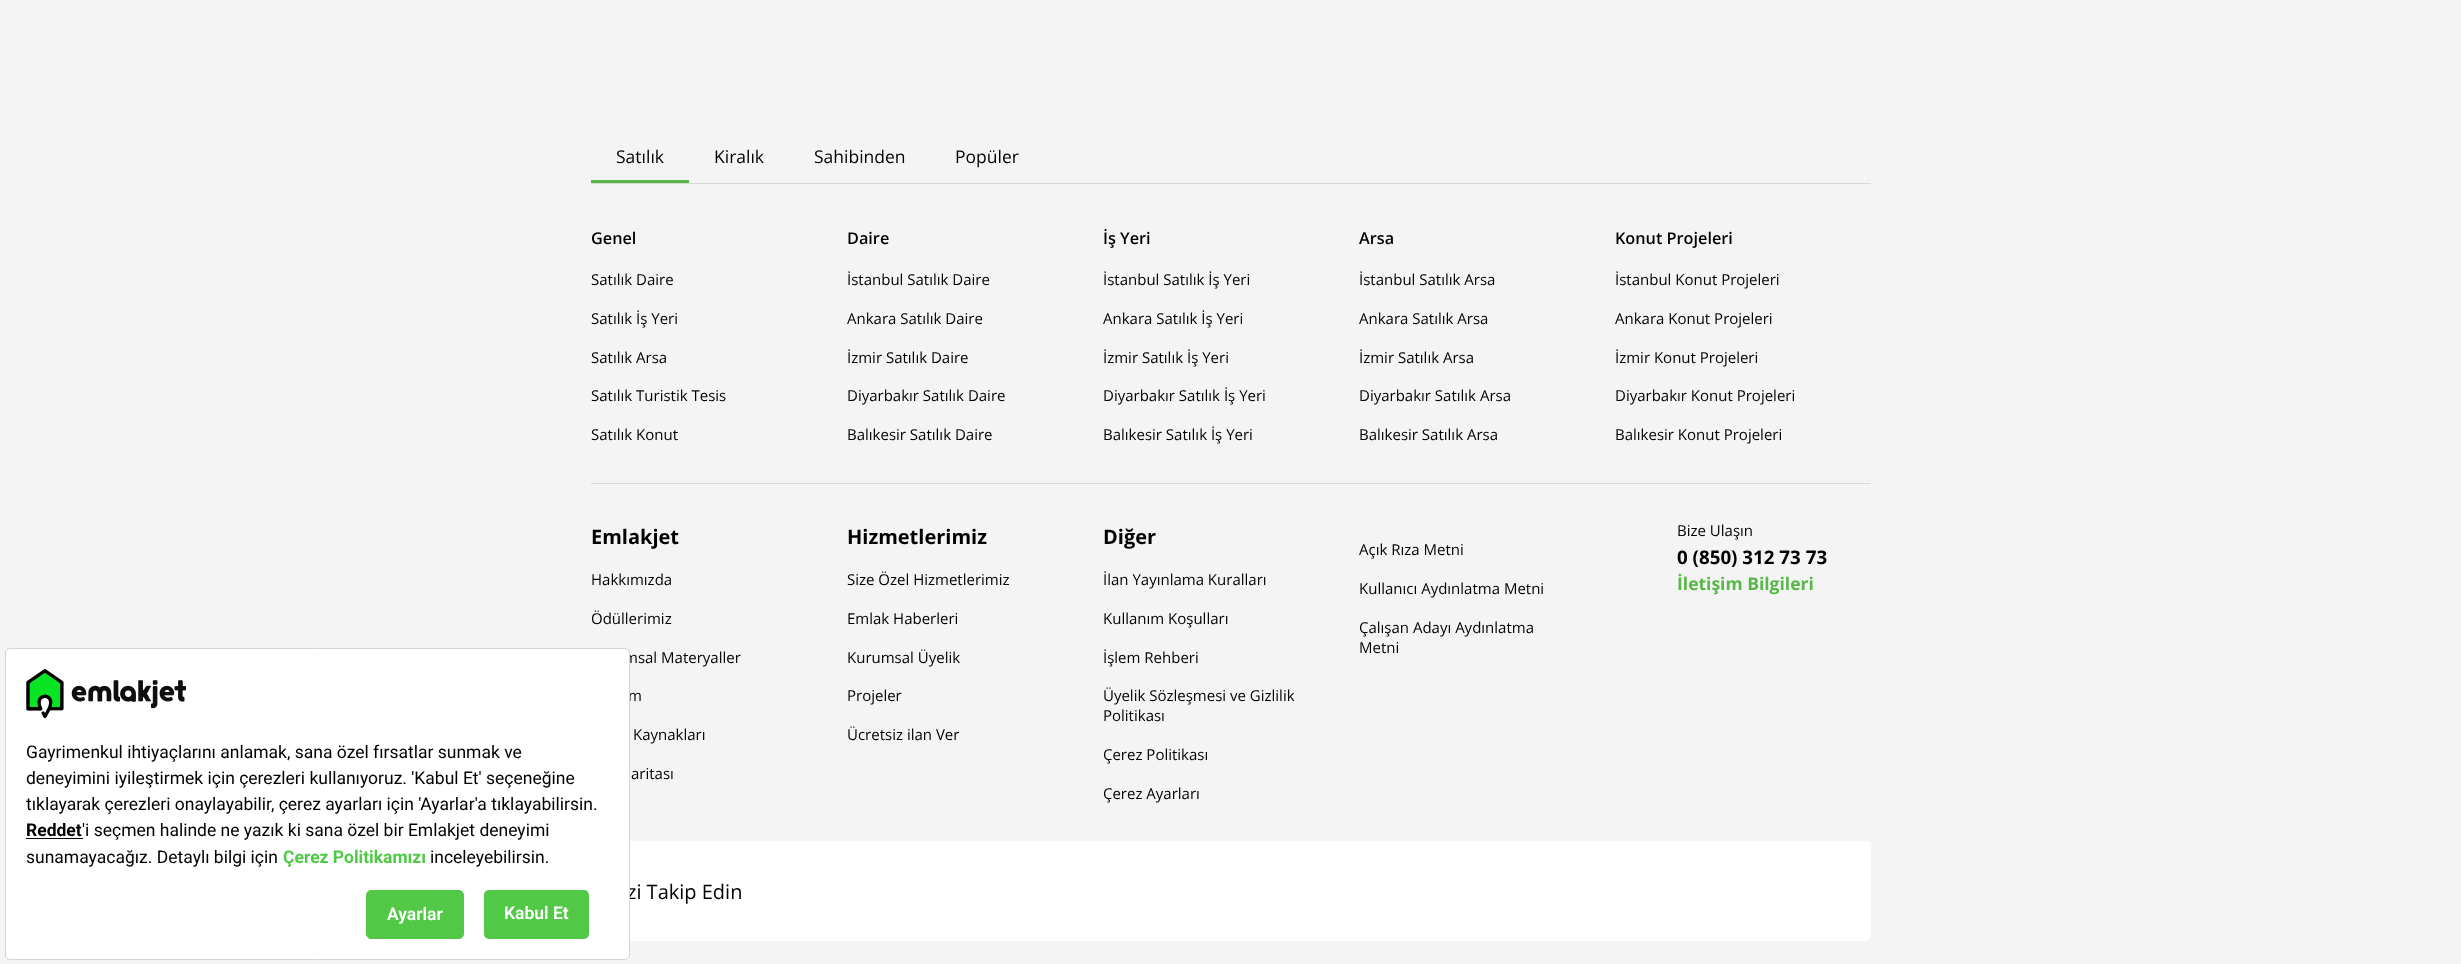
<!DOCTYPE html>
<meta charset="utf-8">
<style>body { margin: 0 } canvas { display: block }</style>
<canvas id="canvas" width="2461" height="964"></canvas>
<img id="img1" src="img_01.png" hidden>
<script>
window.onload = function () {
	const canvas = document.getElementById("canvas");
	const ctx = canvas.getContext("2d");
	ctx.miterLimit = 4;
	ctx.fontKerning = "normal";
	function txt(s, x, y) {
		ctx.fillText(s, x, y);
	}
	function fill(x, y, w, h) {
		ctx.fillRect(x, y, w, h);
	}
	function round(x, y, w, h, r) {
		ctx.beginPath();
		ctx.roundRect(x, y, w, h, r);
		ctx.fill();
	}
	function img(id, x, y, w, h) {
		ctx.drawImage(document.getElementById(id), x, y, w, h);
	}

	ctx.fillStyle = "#F4F4F4";
	fill(0, 0, 2461, 964);
	ctx.fillStyle = "#D8D8D8";
	fill(591, 183, 1280, 1);
	ctx.fillStyle = "#58B847";
	fill(591, 180, 98, 3);
	ctx.fillStyle = "#D8D8D8";
	fill(591, 483, 1280, 1);
	ctx.fillStyle = "#FFFFFF";
	round(591, 841, 1280, 100, 5);
	ctx.font = "17.5px Open Sans";
	ctx.fillStyle = "#000000";
	txt("Satılık", 616, 163);
	txt("Kiralık", 714, 163);
	txt("Sahibinden", 814, 163);
	txt("Popüler", 955, 163);
	ctx.font = "600 16.25px Open Sans";
	txt("Genel", 591, 244);
	ctx.font = "15px Open Sans";
	txt("Satılık Daire", 591, 285);
	txt("Satılık İş Yeri", 591, 324);
	txt("Satılık Arsa", 591, 363);
	txt("Satılık Turistik Tesis", 591, 401);
	txt("Satılık Konut", 591, 440);
	ctx.font = "600 16.25px Open Sans";
	txt("Daire", 847, 244);
	ctx.font = "15px Open Sans";
	txt("İstanbul Satılık Daire", 847, 285);
	txt("Ankara Satılık Daire", 847, 324);
	txt("İzmir Satılık Daire", 847, 363);
	txt("Diyarbakır Satılık Daire", 847, 401);
	txt("Balıkesir Satılık Daire", 847, 440);
	ctx.font = "600 16.25px Open Sans";
	txt("İş Yeri", 1103, 244);
	ctx.font = "15px Open Sans";
	txt("İstanbul Satılık İş Yeri", 1103, 285);
	txt("Ankara Satılık İş Yeri", 1103, 324);
	txt("İzmir Satılık İş Yeri", 1103, 363);
	txt("Diyarbakır Satılık İş Yeri", 1103, 401);
	txt("Balıkesir Satılık İş Yeri", 1103, 440);
	ctx.font = "600 16.25px Open Sans";
	txt("Arsa", 1359, 244);
	ctx.font = "15px Open Sans";
	txt("İstanbul Satılık Arsa", 1359, 285);
	txt("Ankara Satılık Arsa", 1359, 324);
	txt("İzmir Satılık Arsa", 1359, 363);
	txt("Diyarbakır Satılık Arsa", 1359, 401);
	txt("Balıkesir Satılık Arsa", 1359, 440);
	ctx.font = "600 16.25px Open Sans";
	txt("Konut Projeleri", 1615, 244);
	ctx.font = "15px Open Sans";
	txt("İstanbul Konut Projeleri", 1615, 285);
	txt("Ankara Konut Projeleri", 1615, 324);
	txt("İzmir Konut Projeleri", 1615, 363);
	txt("Diyarbakır Konut Projeleri", 1615, 401);
	txt("Balıkesir Konut Projeleri", 1615, 440);
	ctx.font = "bold 20px Open Sans";
	txt("Emlakjet", 591, 544);
	ctx.font = "15px Open Sans";
	txt("Hakkımızda", 591, 585);
	txt("Ödüllerimiz", 591, 624);
	txt("msal Materyaller", 624, 663);
	txt("m", 628, 701);
	txt("Kaynakları", 633, 740);
	txt("aritası", 631, 779);
	ctx.font = "bold 20px Open Sans";
	txt("Hizmetlerimiz", 847, 544);
	ctx.font = "15px Open Sans";
	txt("Size Özel Hizmetlerimiz", 847, 585);
	txt("Emlak Haberleri", 847, 624);
	txt("Kurumsal Üyelik", 847, 663);
	txt("Projeler", 847, 701);
	txt("Ücretsiz ilan Ver", 847, 740);
	ctx.font = "bold 20px Open Sans";
	txt("Diğer", 1103, 544);
	ctx.font = "15px Open Sans";
	txt("İlan Yayınlama Kuralları", 1103, 585);
	txt("Kullanım Koşulları", 1103, 624);
	txt("İşlem Rehberi", 1103, 663);
	txt("Üyelik Sözleşmesi ve Gizlilik", 1103, 701);
	txt("Politikası", 1103, 721);
	txt("Çerez Politikası", 1103, 760);
	txt("Çerez Ayarları", 1103, 799);
	txt("Açık Rıza Metni", 1359, 555);
	txt("Kullanıcı Aydınlatma Metni", 1359, 594);
	txt("Çalışan Adayı Aydınlatma", 1359, 633);
	txt("Metni", 1359, 653);
	txt("Bize Ulaşın", 1677, 536);
	ctx.font = "bold 18.75px Open Sans";
	txt("0 (850) 312 73 73", 1677, 564);
	ctx.font = "bold 17.5px Open Sans";
	ctx.fillStyle = "#58B847";
	txt("İletişim Bilgileri", 1677, 590);
	ctx.font = "20px Open Sans";
	ctx.fillStyle = "#000000";
	txt("zi Takip Edin", 627, 899);
	ctx.fillStyle = "#FFFFFF";
	ctx.beginPath();
	ctx.roundRect(5.5, 648.5, 624, 311, 4.5);
	ctx.fill();
	ctx.strokeStyle = "#D1D5DB";
	ctx.stroke();
	ctx.fillStyle = "#52C946";
	round(484, 890, 105, 49, 5);
	ctx.font = "600 17.5px Roboto";
	ctx.fillStyle = "#FFFFFF";
	txt("Kabul Et", 504, 919);
	ctx.fillStyle = "#52C946";
	ctx.beginPath();
	ctx.roundRect(366.5, 890.5, 97, 48, 4.5);
	ctx.fill();
	ctx.strokeStyle = "#52C946";
	ctx.stroke();
	ctx.fillStyle = "#FFFFFF";
	txt("Ayarlar", 387, 920);
	ctx.font = "17.5px Roboto";
	ctx.fillStyle = "#000000";
	txt("inceleyebilirsin.", 430, 863);
	ctx.font = "bold 17.5px Roboto";
	ctx.fillStyle = "#50C945";
	txt("Çerez Politikamızı", 283, 863);
	ctx.font = "17.5px Roboto";
	ctx.fillStyle = "#000000";
	txt("sunamayacağız. Detaylı bilgi için", 26, 863);
	fill(26, 838, 57, 1);
	txt("'i seçmen halinde ne yazık ki sana özel bir Emlakjet deneyimi", 82, 836);
	ctx.font = "bold 17.5px Roboto";
	txt("Reddet", 26, 836);
	ctx.font = "17.5px Roboto";
	txt("tıklayarak çerezleri onaylayabilir, çerez ayarları için 'Ayarlar'a tıklayabilirsin.", 26, 810);
	txt("deneyimini iyileştirmek için çerezleri kullanıyoruz. 'Kabul Et' seçeneğine", 26, 784);
	txt("Gayrimenkul ihtiyaçlarını anlamak, sana özel fırsatlar sunmak ve", 26, 758);
	img("img1", 26, 669, 160, 49);
};
</script>
